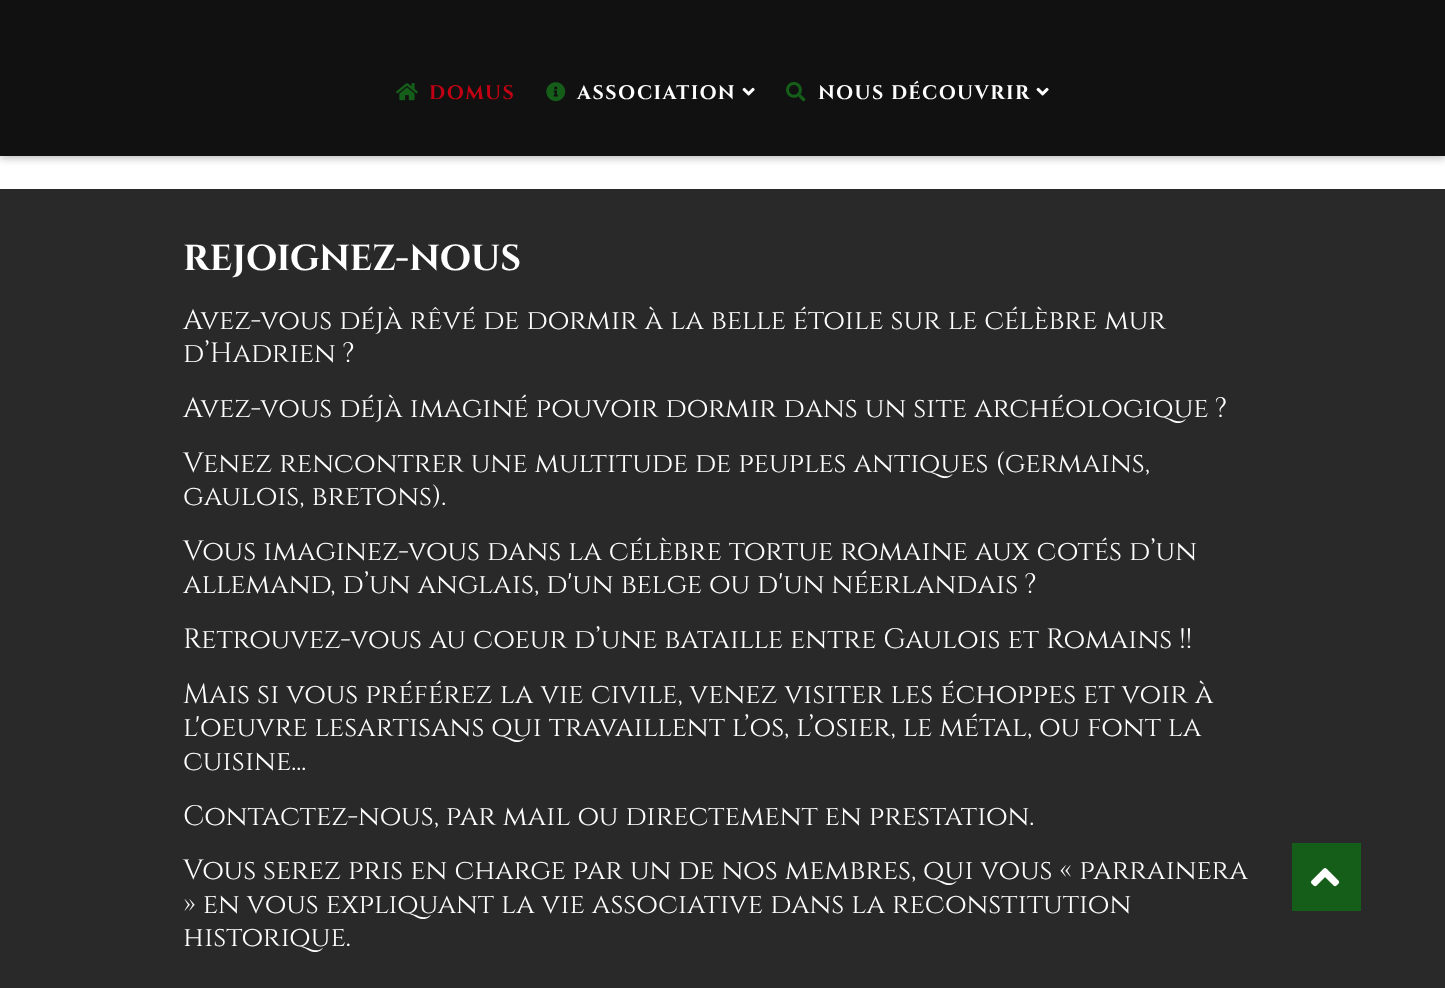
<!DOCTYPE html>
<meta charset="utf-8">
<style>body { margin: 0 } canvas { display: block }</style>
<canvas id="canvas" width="1445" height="988"></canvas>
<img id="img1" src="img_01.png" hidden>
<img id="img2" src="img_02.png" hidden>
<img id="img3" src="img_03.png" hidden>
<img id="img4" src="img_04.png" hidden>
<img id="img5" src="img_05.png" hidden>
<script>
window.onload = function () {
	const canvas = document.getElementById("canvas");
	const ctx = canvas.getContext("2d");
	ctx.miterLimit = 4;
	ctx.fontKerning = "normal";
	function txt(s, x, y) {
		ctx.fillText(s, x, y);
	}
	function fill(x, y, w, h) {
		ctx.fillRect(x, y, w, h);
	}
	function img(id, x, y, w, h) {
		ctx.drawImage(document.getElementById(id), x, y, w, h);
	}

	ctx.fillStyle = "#FFFFFF";
	fill(0, 0, 1445, 988);
	ctx.fillStyle = "rgba(0, 0, 0, 0.27)";
	ctx.filter = "blur(4px)";
	ctx.beginPath();
	ctx.rect(0, 2, 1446, 156);
	ctx.fill();
	ctx.filter = "none";
	ctx.fillStyle = "#111111";
	fill(0, 0, 1445, 156);
	img("img1", 396, 83, 22, 18);
	img("img2", 546, 82, 20, 20);
	img("img3", 742, 87, 13, 9);
	img("img4", 786, 82, 20, 20);
	img("img3", 1036, 87, 13, 9);
	ctx.fillStyle = "#292929";
	fill(0, 189, 1445, 799);
	ctx.fillStyle = "#155E1A";
	fill(1292, 843, 69, 68);
	img("img5", 1311, 868, 29, 19);
	ctx.letterSpacing = "1.5px";
	ctx.font = "bold 19.5px Cinzel";
	ctx.fillStyle = "#C30013";
	txt("DOMUS", 429, 99);
	ctx.fillStyle = "#FFFFFF";
	txt("ASSOCIATION", 577, 99);
	txt("NOUS DÉCOUVRIR", 818, 99);
	ctx.letterSpacing = "0px";
	ctx.font = "bold 36px Cinzel";
	txt("REJOIGNEZ-NOUS", 183, 270);
	ctx.font = "28px Cinzel";
	txt("Avez-vous déjà rêvé de dormir à la belle étoile sur le célèbre mur", 183, 329);
	txt("d’Hadrien ?", 183, 362);
	txt("Avez-vous déjà imaginé pouvoir dormir dans un site archéologique ?", 183, 417);
	txt("Venez rencontrer une multitude de peuples antiques (germains,", 183, 472);
	txt("gaulois, bretons).", 183, 505);
	txt("Vous imaginez-vous dans la célèbre tortue romaine aux cotés d’un", 183, 560);
	txt("allemand, d’un anglais, d'un belge ou d'un néerlandais ?", 183, 593);
	txt("Retrouvez-vous au coeur d’une bataille entre Gaulois et Romains !!", 183, 648);
	txt("Mais si vous préférez la vie civile, venez visiter les échoppes et voir à", 183, 703);
	txt("l'oeuvre lesartisans qui travaillent l’os, l’osier, le métal, ou font la", 183, 736);
	txt("cuisine...", 183, 770);
	txt("Contactez-nous, par mail ou directement en prestation.", 183, 825);
	txt("Vous serez pris en charge par un de nos membres, qui vous « parrainera", 183, 879);
	txt("» en vous expliquant la vie associative dans la reconstitution", 183, 913);
	txt("historique.", 183, 946);
};
</script>
